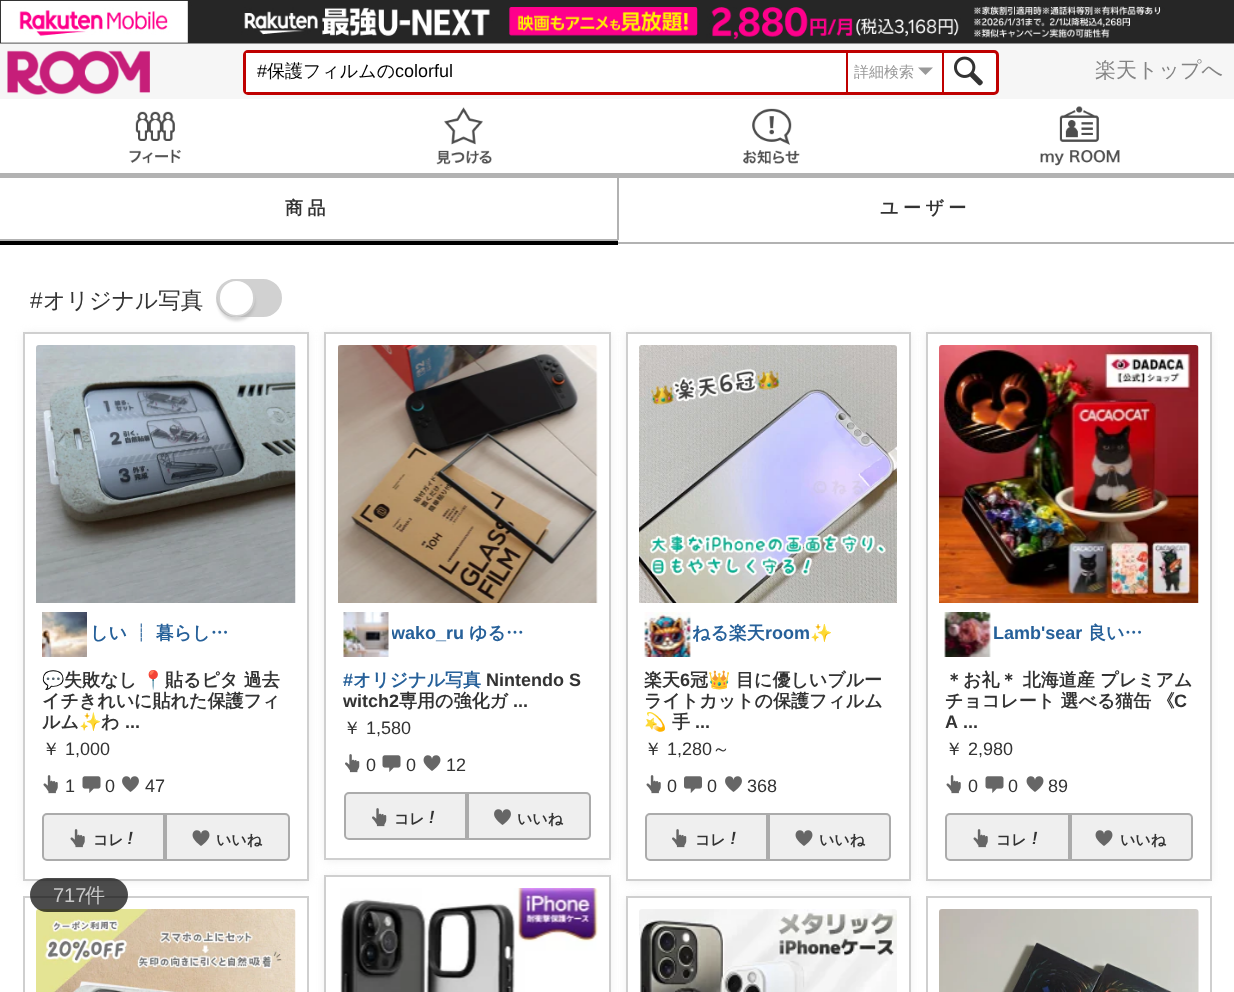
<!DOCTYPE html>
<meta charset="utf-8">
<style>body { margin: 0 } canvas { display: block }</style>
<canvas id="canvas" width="1234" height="992"></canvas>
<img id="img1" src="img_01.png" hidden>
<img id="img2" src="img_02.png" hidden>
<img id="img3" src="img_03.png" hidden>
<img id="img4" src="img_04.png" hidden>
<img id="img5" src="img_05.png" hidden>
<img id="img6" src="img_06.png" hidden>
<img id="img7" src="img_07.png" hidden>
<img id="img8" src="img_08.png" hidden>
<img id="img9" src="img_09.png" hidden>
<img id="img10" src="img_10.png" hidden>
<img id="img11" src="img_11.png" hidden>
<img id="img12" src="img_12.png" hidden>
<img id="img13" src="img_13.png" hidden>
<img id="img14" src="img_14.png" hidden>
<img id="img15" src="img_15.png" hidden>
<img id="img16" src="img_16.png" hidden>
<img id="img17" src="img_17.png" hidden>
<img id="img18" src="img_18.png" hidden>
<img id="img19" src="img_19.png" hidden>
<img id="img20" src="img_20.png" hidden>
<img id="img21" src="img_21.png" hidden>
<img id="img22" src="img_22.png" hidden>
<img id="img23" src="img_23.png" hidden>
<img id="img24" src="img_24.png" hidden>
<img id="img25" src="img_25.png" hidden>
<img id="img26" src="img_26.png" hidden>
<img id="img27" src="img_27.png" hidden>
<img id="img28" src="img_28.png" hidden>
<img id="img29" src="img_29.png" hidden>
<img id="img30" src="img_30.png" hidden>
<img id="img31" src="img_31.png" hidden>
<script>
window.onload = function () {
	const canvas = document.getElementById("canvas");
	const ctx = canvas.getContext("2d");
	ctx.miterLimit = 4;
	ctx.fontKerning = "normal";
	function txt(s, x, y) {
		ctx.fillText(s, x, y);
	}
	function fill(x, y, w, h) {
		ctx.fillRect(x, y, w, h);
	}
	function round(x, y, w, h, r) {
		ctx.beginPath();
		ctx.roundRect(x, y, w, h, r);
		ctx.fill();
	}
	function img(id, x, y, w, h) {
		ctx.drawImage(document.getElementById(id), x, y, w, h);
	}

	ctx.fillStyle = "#FFFFFF";
	fill(0, 0, 1234, 992);
	img("img1", 0, 0, 1234, 44);
	ctx.fillStyle = "#F6F6F6";
	fill(0, 44, 1234, 55);
	ctx.fillStyle = "#FFFFFF";
	ctx.beginPath();
	ctx.roundRect(244.5, 51.5, 753, 42, 3.5);
	ctx.fill();
	ctx.strokeStyle = "#BF0000";
	ctx.lineWidth = 3;
	ctx.stroke();
	fill(246, 53, 2, 39);
	ctx.fillStyle = "#BF0000";
	fill(846, 53, 2, 39);
	ctx.fillStyle = "#999999";
	ctx.beginPath();
	ctx.moveTo(918, 67.5);
	ctx.lineTo(933, 67.5);
	ctx.lineTo(925.5, 75);
	ctx.closePath();
	ctx.fill();
	ctx.fillStyle = "#BF0000";
	fill(942, 53, 2, 39);
	img("img2", 954, 56, 29, 30);
	img("img3", 7, 50, 143, 45);
	img("img4", 436, 107, 56, 58);
	ctx.fillStyle = "#B2B2B2";
	fill(617, 177, 2, 63);
	fill(618, 173, 616, 5);
	img("img5", 1040, 106, 80, 60);
	fill(0, 173, 618, 5);
	img("img6", 129, 111, 52, 53);
	img("img7", 743, 108, 57, 57);
	ctx.fillStyle = "#000000";
	fill(0, 241, 618, 4);
	ctx.fillStyle = "#B2B2B2";
	fill(0, 239, 618, 2);
	fill(618, 242, 616, 2);
	ctx.fillStyle = "#D1D1D1";
	ctx.beginPath();
	ctx.roundRect(217, 280, 64, 36, 18);
	ctx.fill();
	ctx.strokeStyle = "#D1D1D1";
	ctx.lineWidth = 2;
	ctx.stroke();
	ctx.fillStyle = "rgba(153, 153, 153, 0.4)";
	ctx.filter = "blur(1.5px)";
	ctx.beginPath();
	ctx.roundRect(218, 284, 37, 37, 18.5);
	ctx.fill();
	ctx.filter = "none";
	ctx.fillStyle = "#FFFFFF";
	ctx.beginPath();
	ctx.roundRect(219, 280, 35, 36, 17.5);
	ctx.fill();
	ctx.stroke();
	ctx.fillStyle = "#EFEFEF";
	ctx.filter = "blur(4.5px)";
	ctx.beginPath();
	ctx.roundRect(23, 333, 286, 549, 5);
	ctx.fill();
	ctx.filter = "none";
	ctx.fillStyle = "#FFFFFF";
	ctx.beginPath();
	ctx.rect(24, 333, 284, 547);
	ctx.fill();
	ctx.strokeStyle = "#CFCFCF";
	ctx.stroke();
	img("img8", 36, 345, 260, 258);
	img("img9", 42, 612, 45, 45);
	img("img10", 43, 775, 15, 19);
	img("img11", 82, 776, 19, 17);
	img("img12", 122, 776, 17, 16);
	ctx.fillStyle = "#EFEFEF";
	ctx.beginPath();
	ctx.roundRect(43, 814, 121, 46, [4, 0, 0, 4]);
	ctx.fill();
	ctx.strokeStyle = "#ABABAB";
	ctx.stroke();
	img("img13", 70, 829, 15, 19);
	img("img14", 128, 831, 5, 13);
	ctx.beginPath();
	ctx.roundRect(166, 814, 123, 46, [0, 4, 4, 0]);
	ctx.fill();
	ctx.stroke();
	img("img15", 192, 830, 18, 16);
	ctx.strokeStyle = "#CFCFCF";
	ctx.strokeRect(24, 897, 284, 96);
	img("img16", 36, 909, 260, 83);
	ctx.filter = "blur(4.5px)";
	ctx.beginPath();
	ctx.roundRect(324, 333, 287, 528, 5);
	ctx.fill();
	ctx.filter = "none";
	ctx.fillStyle = "#FFFFFF";
	ctx.beginPath();
	ctx.rect(325, 333, 285, 526);
	ctx.fill();
	ctx.stroke();
	img("img17", 338, 345, 260, 258);
	img("img18", 343, 612, 46, 45);
	img("img19", 345, 754, 15, 19);
	img("img11", 382, 755, 19, 17);
	img("img20", 423, 755, 18, 16);
	ctx.fillStyle = "#EFEFEF";
	ctx.beginPath();
	ctx.roundRect(345, 793, 121, 46, [4, 0, 0, 4]);
	ctx.fill();
	ctx.strokeStyle = "#ABABAB";
	ctx.stroke();
	img("img21", 372, 808, 15, 19);
	img("img22", 429, 810, 6, 13);
	ctx.beginPath();
	ctx.roundRect(468, 793, 122, 46, [0, 4, 4, 0]);
	ctx.fill();
	ctx.stroke();
	img("img23", 494, 809, 17, 16);
	ctx.filter = "blur(4.5px)";
	ctx.beginPath();
	ctx.roundRect(324, 876, 287, 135, 5);
	ctx.fill();
	ctx.filter = "none";
	ctx.fillStyle = "#FFFFFF";
	ctx.beginPath();
	ctx.rect(325, 876, 285, 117);
	ctx.fill();
	ctx.strokeStyle = "#CFCFCF";
	ctx.stroke();
	img("img24", 340, 888, 258, 104);
	ctx.fillStyle = "#EFEFEF";
	ctx.filter = "blur(4.5px)";
	ctx.beginPath();
	ctx.roundRect(626, 333, 285, 549, 5);
	ctx.fill();
	ctx.filter = "none";
	ctx.fillStyle = "#FFFFFF";
	ctx.beginPath();
	ctx.rect(627, 333, 283, 547);
	ctx.fill();
	ctx.stroke();
	img("img25", 639, 345, 258, 258);
	img("img26", 644, 612, 47, 45);
	img("img10", 646, 775, 15, 19);
	img("img27", 684, 776, 18, 17);
	img("img12", 725, 776, 17, 16);
	ctx.fillStyle = "#EFEFEF";
	ctx.beginPath();
	ctx.roundRect(646, 814, 121, 46, [4, 0, 0, 4]);
	ctx.fill();
	ctx.strokeStyle = "#ABABAB";
	ctx.stroke();
	img("img21", 672, 829, 15, 19);
	img("img14", 731, 831, 5, 13);
	ctx.beginPath();
	ctx.roundRect(769, 814, 121, 46, [0, 4, 4, 0]);
	ctx.fill();
	ctx.stroke();
	img("img15", 795, 830, 18, 16);
	ctx.filter = "blur(4.5px)";
	ctx.beginPath();
	ctx.roundRect(626, 897, 285, 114, 5);
	ctx.fill();
	ctx.filter = "none";
	ctx.fillStyle = "#FFFFFF";
	ctx.beginPath();
	ctx.rect(627, 897, 283, 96);
	ctx.fill();
	ctx.strokeStyle = "#CFCFCF";
	ctx.stroke();
	img("img28", 639, 909, 258, 83);
	ctx.fillStyle = "#EFEFEF";
	ctx.filter = "blur(4.5px)";
	ctx.beginPath();
	ctx.roundRect(926, 333, 286, 549, 5);
	ctx.fill();
	ctx.filter = "none";
	ctx.fillStyle = "#FFFFFF";
	ctx.beginPath();
	ctx.rect(927, 333, 284, 547);
	ctx.fill();
	ctx.stroke();
	img("img29", 939, 345, 260, 258);
	img("img30", 944, 612, 47, 45);
	img("img10", 946, 775, 15, 19);
	img("img11", 985, 776, 19, 17);
	img("img20", 1026, 776, 18, 16);
	ctx.fillStyle = "#EFEFEF";
	ctx.beginPath();
	ctx.roundRect(946, 814, 123, 46, [4, 0, 0, 4]);
	ctx.fill();
	ctx.strokeStyle = "#ABABAB";
	ctx.stroke();
	img("img13", 973, 829, 15, 19);
	img("img22", 1032, 831, 6, 13);
	ctx.beginPath();
	ctx.roundRect(1071, 814, 121, 46, [0, 4, 4, 0]);
	ctx.fill();
	ctx.stroke();
	img("img15", 1095, 830, 18, 16);
	ctx.strokeStyle = "#CFCFCF";
	ctx.strokeRect(927, 897, 284, 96);
	img("img31", 939, 909, 260, 83);
	ctx.fillStyle = "rgba(0, 0, 0, 0.7)";
	round(30, 878, 98, 34, 17);
	ctx.font = "18px Liberation Sans";
	ctx.fillStyle = "#000000";
	txt("#", 257, 77);
	ctx.font = "500 18px WenQuanYi Zen Hei";
	txt("保護フィルムの", 267, 77);
	ctx.font = "18px Liberation Sans";
	txt("colorful", 395, 77);
	ctx.font = "500 15px WenQuanYi Zen Hei";
	ctx.fillStyle = "#999999";
	txt("詳細検索", 854, 77);
	ctx.font = "500 21px WenQuanYi Zen Hei";
	ctx.fillStyle = "#848484";
	txt("楽天トップへ", 1095, 77);
	ctx.letterSpacing = "4.5px";
	ctx.font = "bold 18px WenQuanYi Zen Hei";
	ctx.fillStyle = "#333333";
	txt("商品", 285, 214);
	txt("ユーザー", 880, 214);
	ctx.letterSpacing = "0px";
	ctx.font = "22.5px Liberation Sans";
	txt("#", 30, 308);
	ctx.font = "500 22.5px WenQuanYi Zen Hei";
	txt("オリジナル写真", 43, 308);
	ctx.font = "bold 18px WenQuanYi Zen Hei";
	ctx.fillStyle = "#266099";
	txt("しい ┊︎ 暮らし…", 90, 639);
	ctx.font = "bold 18px Noto Color Emoji";
	ctx.fillStyle = "#333333";
	txt("💬", 42, 686);
	ctx.font = "bold 18px WenQuanYi Zen Hei";
	txt("失敗なし", 64, 686);
	ctx.font = "bold 18px Noto Color Emoji";
	txt("📍", 142, 686);
	ctx.font = "bold 18px WenQuanYi Zen Hei";
	txt("貼るピタ 過去", 165, 686);
	txt("イチきれいに貼れた保護フィ", 42, 707);
	txt("ルム", 42, 728);
	ctx.font = "bold 18px Noto Color Emoji";
	txt("✨", 79, 728);
	ctx.font = "bold 18px WenQuanYi Zen Hei";
	txt("わ", 101, 728);
	ctx.font = "bold 18px Liberation Sans";
	txt("...", 125, 728);
	ctx.font = "500 18px WenQuanYi Zen Hei";
	txt("￥", 42, 755);
	ctx.font = "18px Liberation Sans";
	txt("1,000", 65, 755);
	txt("1", 65, 792);
	txt("0", 105, 792);
	txt("47", 145, 792);
	ctx.font = "bold 15px WenQuanYi Zen Hei";
	txt("コレ", 93, 845);
	txt("いいね", 216, 845);
	ctx.save();
	ctx.beginPath();
	ctx.rect(392, 624, 150, 20);
	ctx.clip();
	ctx.font = "bold 18px Liberation Sans";
	ctx.fillStyle = "#266099";
	txt("wako_ru", 391, 639);
	ctx.restore();
	ctx.font = "bold 18px WenQuanYi Zen Hei";
	ctx.fillStyle = "#266099";
	txt("ゆる…", 469, 639);
	ctx.font = "bold 18px Liberation Sans";
	txt("#", 343, 686);
	ctx.font = "bold 18px WenQuanYi Zen Hei";
	txt("オリジナル写真", 353, 686);
	ctx.font = "bold 18px Liberation Sans";
	ctx.fillStyle = "#333333";
	txt("Nintendo S", 486, 686);
	txt("witch2", 343, 707);
	ctx.font = "bold 18px WenQuanYi Zen Hei";
	txt("専用の強化ガ", 399, 707);
	ctx.font = "bold 18px Liberation Sans";
	txt("...", 513, 707);
	ctx.font = "500 18px WenQuanYi Zen Hei";
	txt("￥", 343, 734);
	ctx.font = "18px Liberation Sans";
	txt("1,580", 366, 734);
	txt("0", 366, 771);
	txt("0", 406, 771);
	txt("12", 446, 771);
	ctx.font = "bold 15px WenQuanYi Zen Hei";
	txt("コレ", 394, 824);
	txt("いいね", 517, 824);
	ctx.font = "bold 18px WenQuanYi Zen Hei";
	ctx.fillStyle = "#266099";
	txt("ねる楽天", 692, 639);
	ctx.font = "bold 18px Liberation Sans";
	txt("room", 765, 639);
	ctx.save();
	ctx.beginPath();
	ctx.rect(693, 624, 150, 20);
	ctx.clip();
	ctx.font = "bold 18px Noto Color Emoji";
	txt("✨", 810, 639);
	ctx.restore();
	ctx.font = "bold 18px WenQuanYi Zen Hei";
	ctx.fillStyle = "#333333";
	txt("楽天", 644, 686);
	ctx.font = "bold 18px Liberation Sans";
	txt("6", 680, 686);
	ctx.font = "bold 18px WenQuanYi Zen Hei";
	txt("冠", 690, 686);
	ctx.font = "bold 18px Noto Color Emoji";
	txt("👑", 708, 686);
	ctx.font = "bold 18px WenQuanYi Zen Hei";
	txt("目に優しいブルー", 736, 686);
	txt("ライトカットの保護フィルム", 644, 707);
	ctx.font = "bold 18px Noto Color Emoji";
	txt("💫", 644, 728);
	ctx.font = "bold 18px WenQuanYi Zen Hei";
	txt("手", 672, 728);
	ctx.font = "bold 18px Liberation Sans";
	txt("...", 695, 728);
	ctx.font = "500 18px WenQuanYi Zen Hei";
	txt("￥", 644, 755);
	ctx.font = "18px Liberation Sans";
	txt("1,280", 667, 755);
	ctx.font = "500 18px WenQuanYi Zen Hei";
	txt("～", 712, 755);
	ctx.font = "18px Liberation Sans";
	txt("0", 667, 792);
	txt("0", 707, 792);
	txt("368", 747, 792);
	ctx.font = "bold 15px WenQuanYi Zen Hei";
	txt("コレ", 695, 845);
	txt("いいね", 819, 845);
	ctx.font = "bold 18px Liberation Sans";
	ctx.fillStyle = "#266099";
	txt("Lamb'sear", 993, 639);
	ctx.font = "bold 18px WenQuanYi Zen Hei";
	txt("良い…", 1088, 639);
	ctx.fillStyle = "#333333";
	txt("＊お礼＊ 北海道産 プレミアム", 945, 686);
	txt("チョコレート 選べる猫缶 《", 945, 707);
	ctx.font = "bold 18px Liberation Sans";
	txt("C", 1174, 707);
	txt("A", 945, 728);
	txt("...", 963, 728);
	ctx.font = "500 18px WenQuanYi Zen Hei";
	txt("￥", 945, 755);
	ctx.font = "18px Liberation Sans";
	txt("2,980", 968, 755);
	txt("0", 968, 792);
	txt("0", 1008, 792);
	txt("89", 1048, 792);
	ctx.font = "bold 15px WenQuanYi Zen Hei";
	txt("コレ", 996, 845);
	txt("いいね", 1120, 845);
	ctx.font = "20px Liberation Sans";
	ctx.fillStyle = "#C9C9C9";
	txt("717", 53, 902);
	ctx.font = "500 20px WenQuanYi Zen Hei";
	txt("件", 85, 902);
};
</script>
